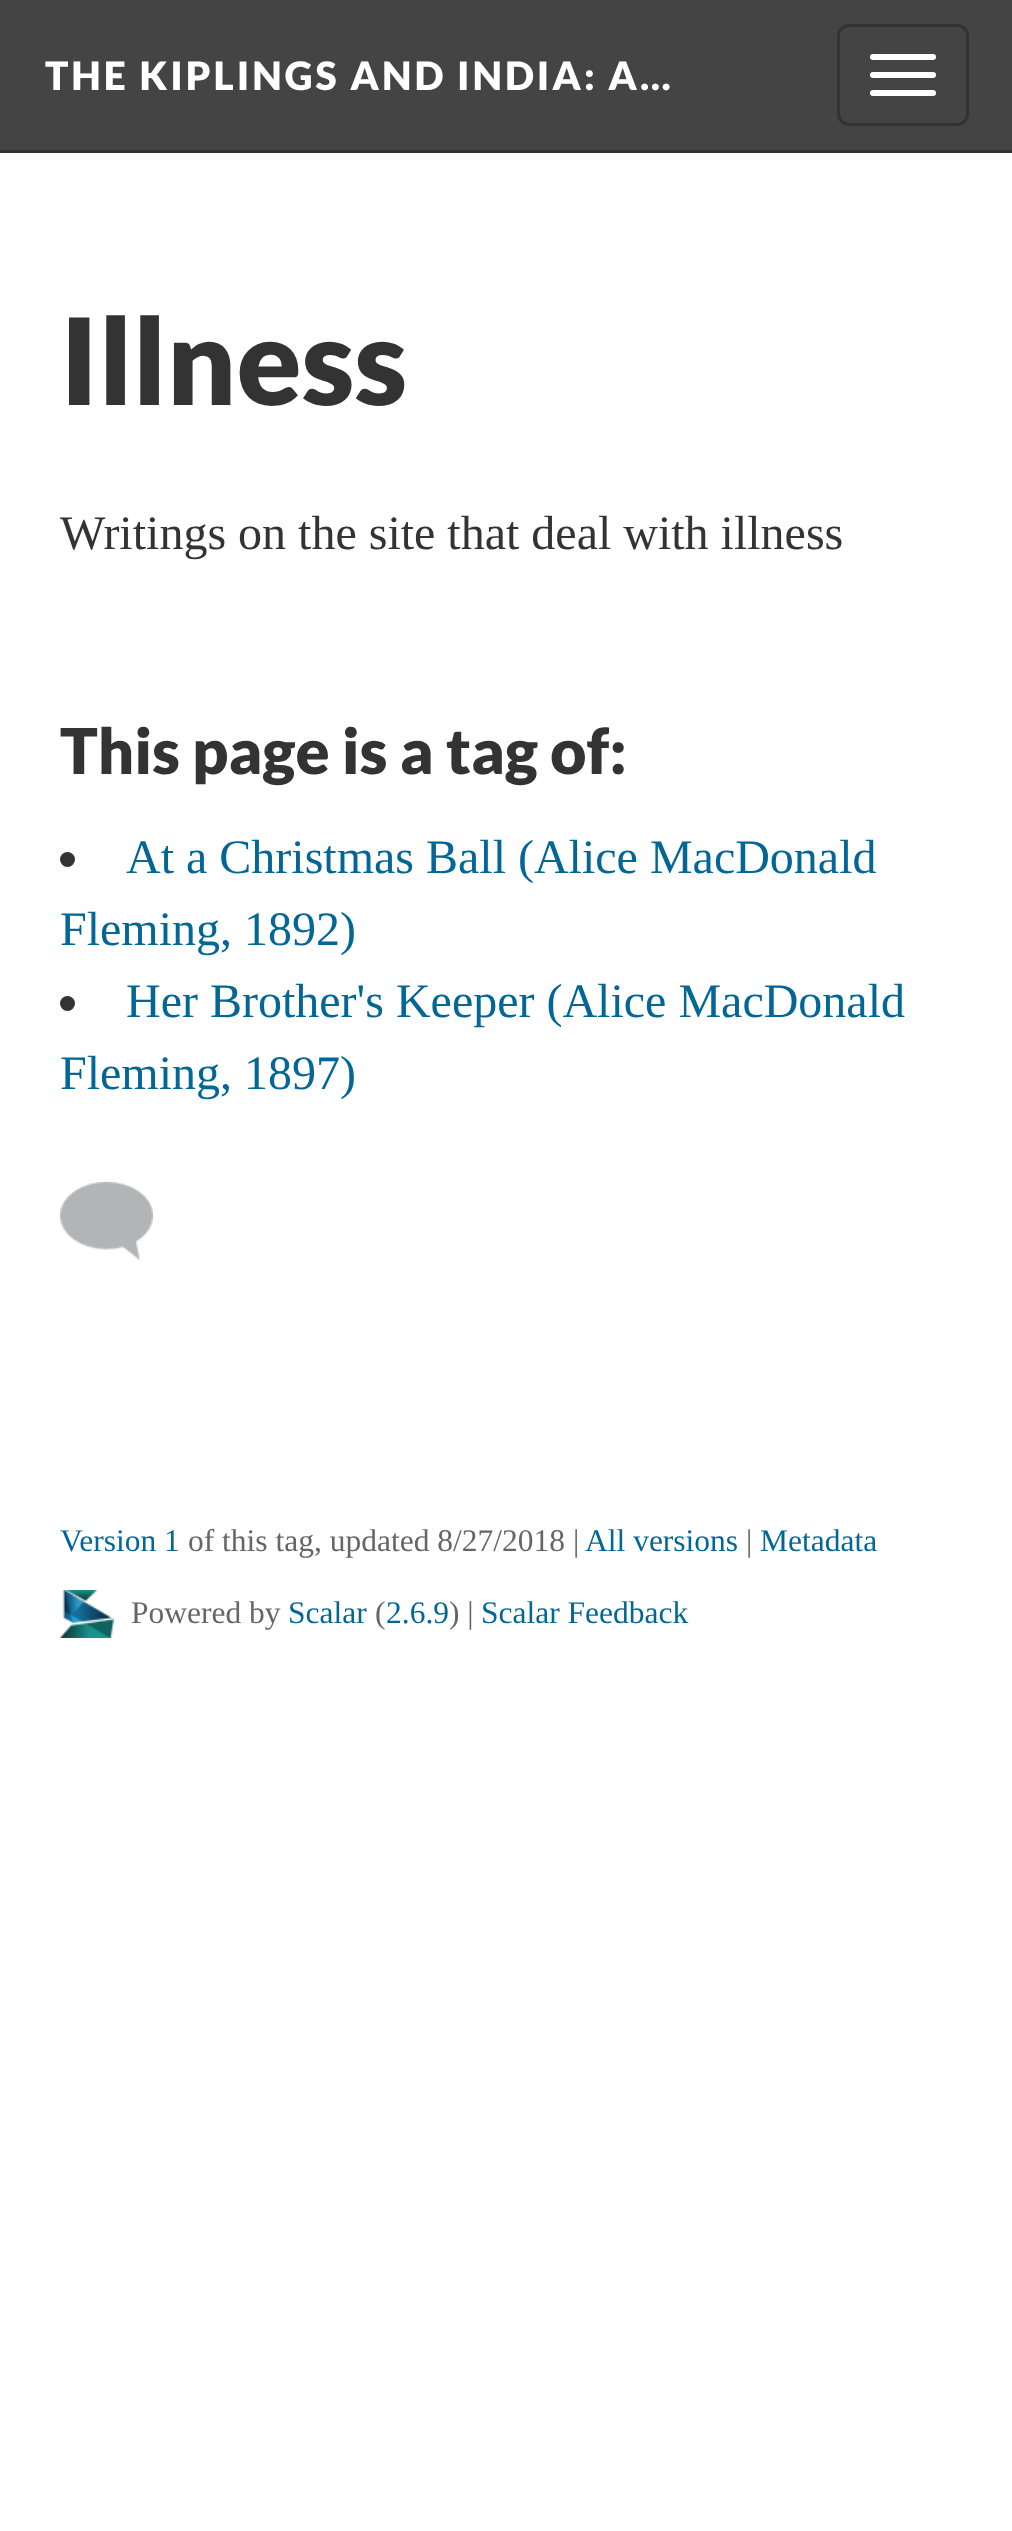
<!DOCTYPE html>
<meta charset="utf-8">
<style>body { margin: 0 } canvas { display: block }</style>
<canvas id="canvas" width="1012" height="2531"></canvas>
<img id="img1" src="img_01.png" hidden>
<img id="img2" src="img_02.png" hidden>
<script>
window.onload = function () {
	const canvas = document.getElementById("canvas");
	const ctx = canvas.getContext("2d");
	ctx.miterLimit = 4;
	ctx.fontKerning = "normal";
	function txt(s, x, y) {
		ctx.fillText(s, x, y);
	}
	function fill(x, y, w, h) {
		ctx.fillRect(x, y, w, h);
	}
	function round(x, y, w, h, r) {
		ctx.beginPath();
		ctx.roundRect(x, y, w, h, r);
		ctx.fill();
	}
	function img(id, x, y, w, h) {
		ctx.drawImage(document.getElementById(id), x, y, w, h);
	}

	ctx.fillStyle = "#FFFFFF";
	fill(0, 0, 1012, 2531);
	ctx.fillStyle = "#444444";
	fill(0, 0, 1012, 150);
	ctx.fillStyle = "#333333";
	fill(0, 150, 1012, 3);
	ctx.beginPath();
	ctx.roundRect(838.5, 25.5, 129, 99, 10.5);
	ctx.strokeStyle = "#333333";
	ctx.lineWidth = 3;
	ctx.stroke();
	ctx.fillStyle = "#FFFFFF";
	round(870, 54, 66, 6, 3);
	round(870, 72, 66, 6, 3);
	round(870, 90, 66, 6, 3);
	ctx.fillStyle = "#333333";
	ctx.beginPath();
	ctx.arc(67.5, 859.5, 7.5, 0, Math.PI * 2);
	ctx.fill();
	ctx.beginPath();
	ctx.arc(67.5, 1003.5, 7.5, 0, Math.PI * 2);
	ctx.fill();
	img("img1", 60, 1182, 93, 78);
	img("img2", 60, 1590, 54, 48);
	ctx.letterSpacing = "3px";
	ctx.font = "900 39px Lato";
	ctx.fillStyle = "#FFFFFF";
	txt("THE KIPLINGS AND INDIA: A…", 45, 90);
	ctx.letterSpacing = "0px";
	ctx.font = "900 120px Lato";
	ctx.fillStyle = "#333333";
	txt("Illness", 60, 405);
	ctx.font = "48px Liberation Serif";
	txt("Writings on the site that deal with illness", 60, 549);
	ctx.font = "900 63px Lato";
	txt("This page is a tag of:", 60, 774);
	ctx.font = "48px Liberation Serif";
	ctx.fillStyle = "#026697";
	txt("At a Christmas Ball (Alice MacDonald", 126, 873);
	txt("Fleming, 1892)", 60, 945);
	txt("Her Brother's Keeper (Alice MacDonald", 126, 1017);
	txt("Fleming, 1897)", 60, 1089);
	ctx.font = "31.5px Liberation Serif";
	txt("Version 1", 60, 1551);
	ctx.fillStyle = "#666666";
	txt("of this tag, updated 8/27/2018 |", 188, 1551);
	ctx.fillStyle = "#026697";
	txt("All versions", 585, 1551);
	ctx.fillStyle = "#666666";
	txt("|", 746, 1551);
	ctx.fillStyle = "#026697";
	txt("Metadata", 760, 1551);
	ctx.fillStyle = "#666666";
	txt("Powered by", 131, 1623);
	ctx.fillStyle = "#026697";
	txt("Scalar", 288, 1623);
	ctx.fillStyle = "#666666";
	txt("(", 375, 1623);
	ctx.fillStyle = "#026697";
	txt("2.6.9", 386, 1623);
	ctx.fillStyle = "#666666";
	txt(") |", 449, 1623);
	ctx.fillStyle = "#026697";
	txt("Scalar Feedback", 481, 1623);
};
</script>
